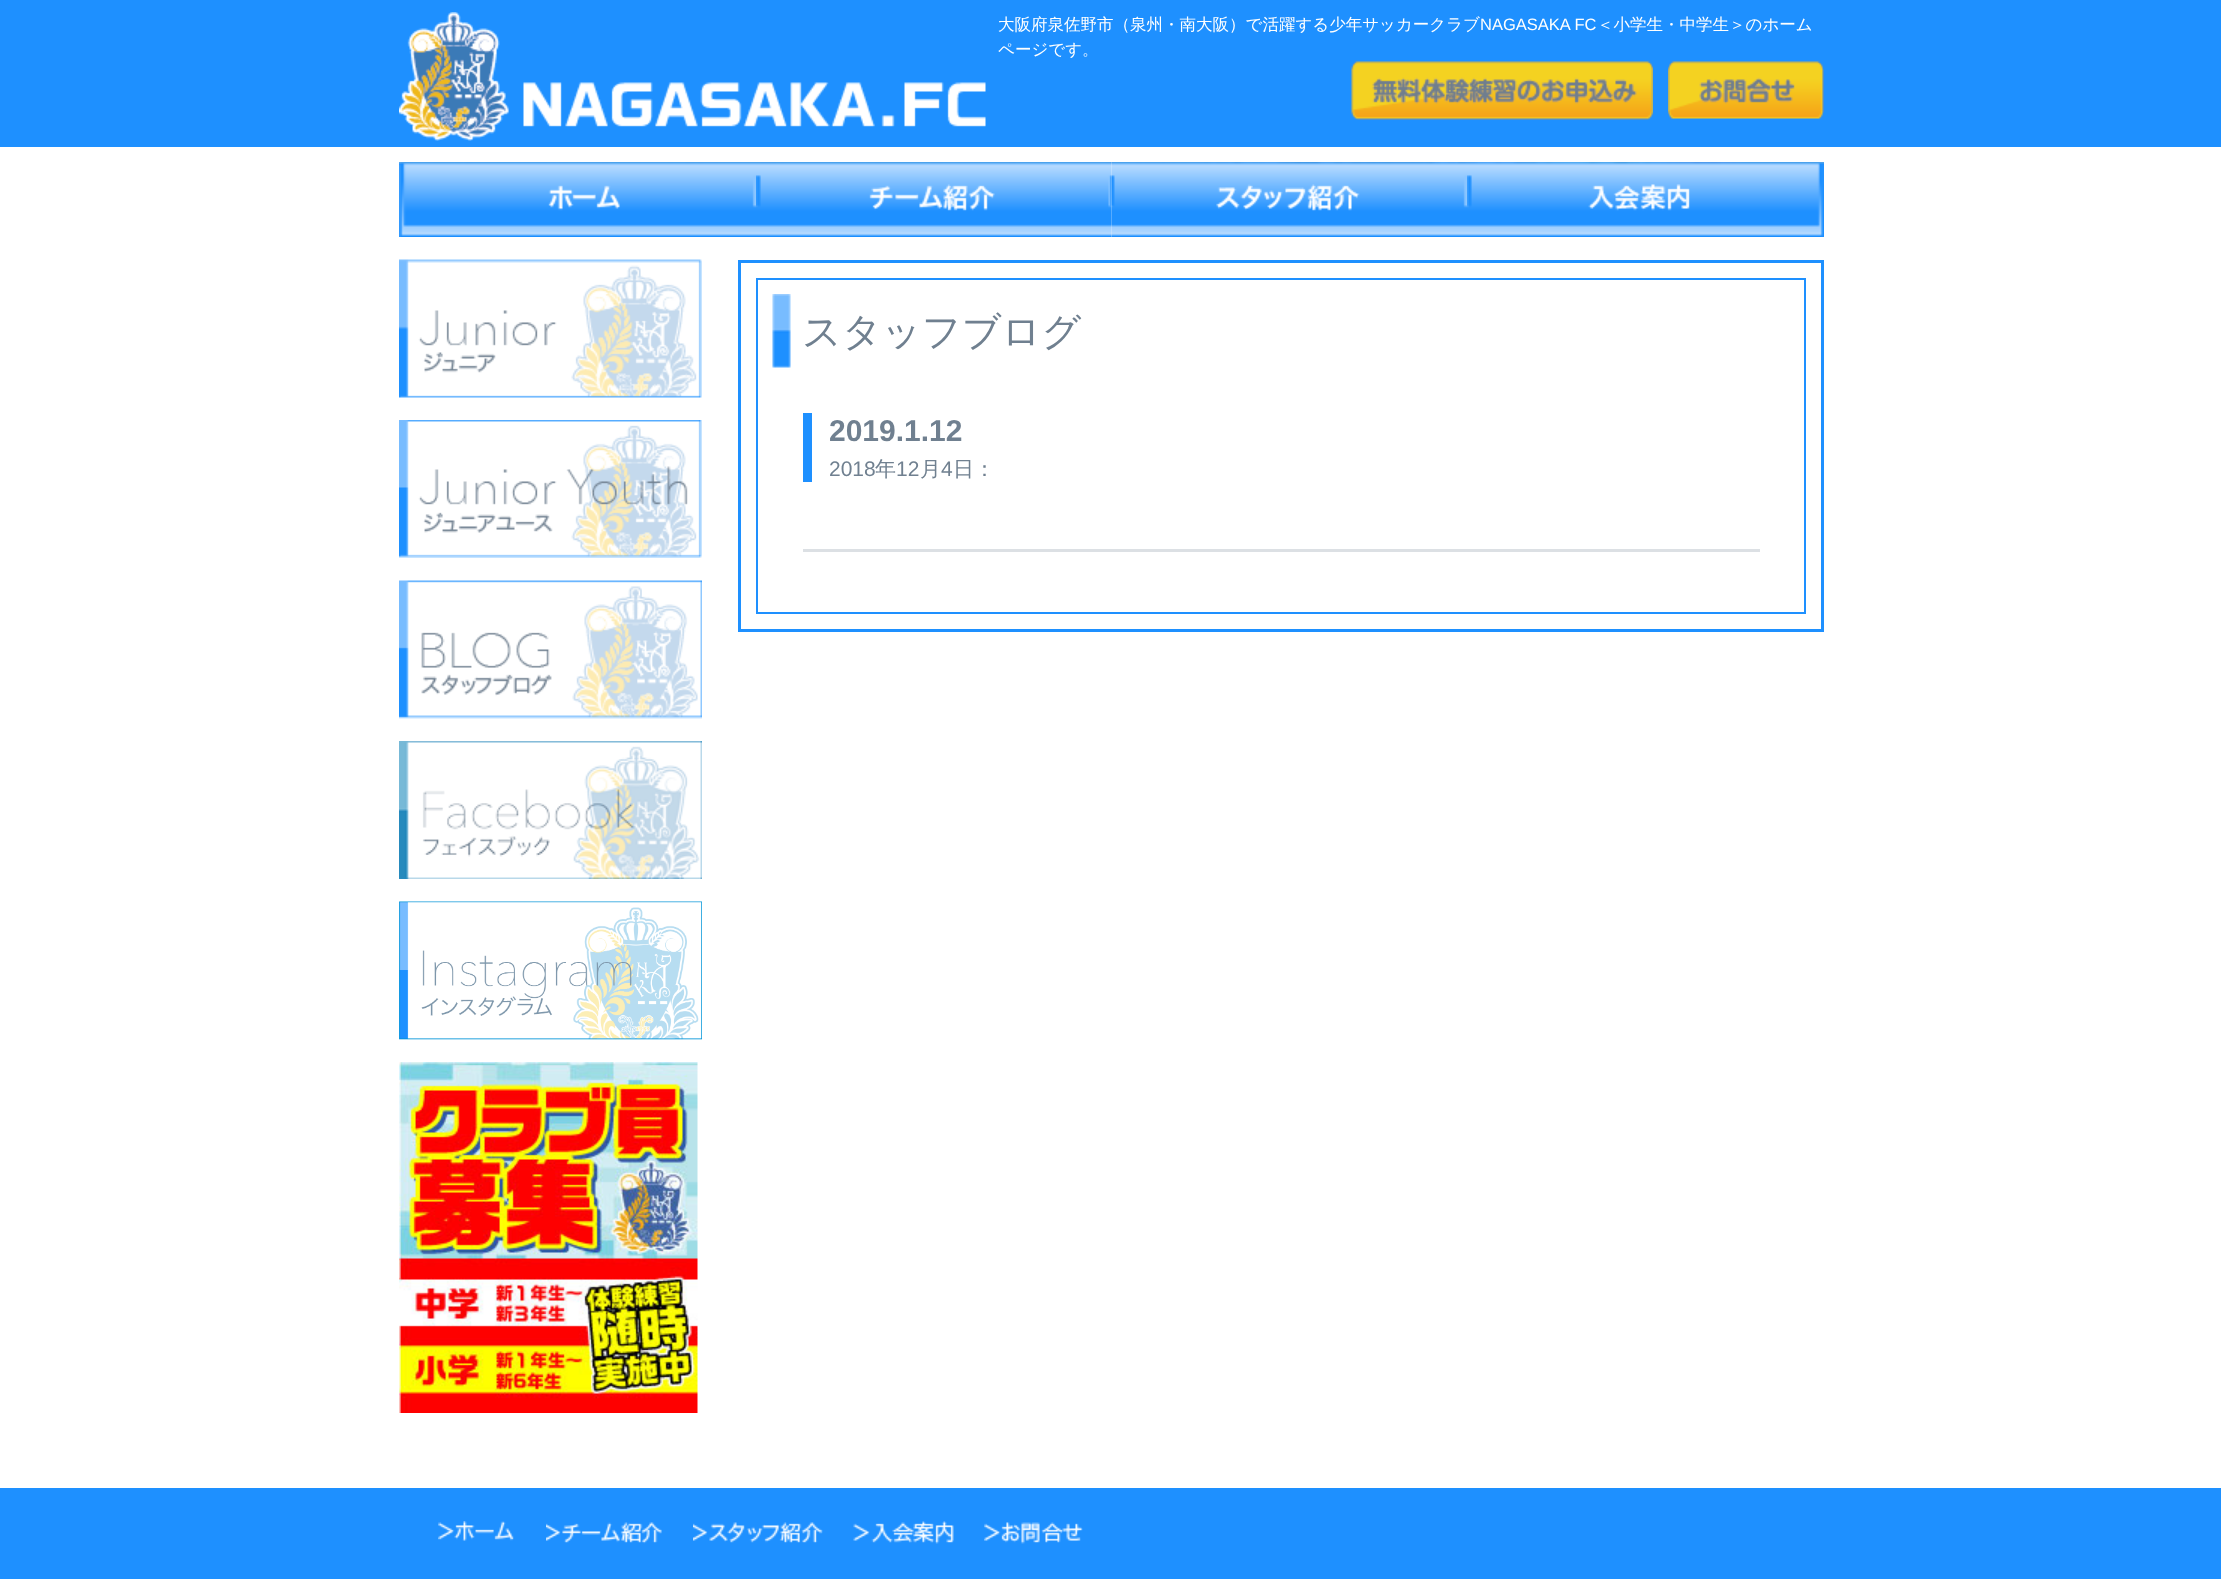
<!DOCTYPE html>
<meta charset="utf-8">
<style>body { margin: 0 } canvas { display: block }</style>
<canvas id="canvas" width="2221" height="1579"></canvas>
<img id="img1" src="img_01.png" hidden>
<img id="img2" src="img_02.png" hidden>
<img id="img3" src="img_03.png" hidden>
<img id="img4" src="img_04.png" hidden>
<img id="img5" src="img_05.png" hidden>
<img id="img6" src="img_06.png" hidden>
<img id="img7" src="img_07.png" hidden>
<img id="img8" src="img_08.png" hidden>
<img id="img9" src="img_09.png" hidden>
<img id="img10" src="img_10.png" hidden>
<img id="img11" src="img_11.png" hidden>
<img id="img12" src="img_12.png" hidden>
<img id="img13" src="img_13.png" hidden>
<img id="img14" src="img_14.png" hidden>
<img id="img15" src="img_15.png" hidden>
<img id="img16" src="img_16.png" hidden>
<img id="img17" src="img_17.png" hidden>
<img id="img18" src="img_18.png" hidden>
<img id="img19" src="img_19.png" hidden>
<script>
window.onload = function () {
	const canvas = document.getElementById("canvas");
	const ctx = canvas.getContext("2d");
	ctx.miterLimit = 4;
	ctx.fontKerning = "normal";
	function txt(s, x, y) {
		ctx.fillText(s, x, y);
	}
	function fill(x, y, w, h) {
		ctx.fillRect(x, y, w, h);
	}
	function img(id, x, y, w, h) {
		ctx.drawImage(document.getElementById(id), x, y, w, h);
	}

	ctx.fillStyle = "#FFFFFF";
	fill(0, 0, 2221, 1579);
	ctx.fillStyle = "#1E90FF";
	fill(0, 0, 2221, 147);
	img("img1", 399, 12, 587, 129);
	img("img2", 1351, 61, 302, 59);
	img("img3", 1668, 61, 156, 58);
	img("img4", 399, 162, 357, 75);
	img("img5", 756, 162, 356, 75);
	img("img6", 1111, 162, 356, 75);
	img("img7", 1467, 162, 357, 75);
	img("img8", 399, 259, 303, 139);
	img("img9", 399, 420, 303, 138);
	img("img10", 399, 580, 303, 139);
	img("img11", 399, 741, 303, 138);
	img("img12", 399, 901, 303, 139);
	img("img13", 399, 1062, 299, 351);
	ctx.strokeStyle = "#1E90FF";
	ctx.lineWidth = 3;
	ctx.strokeRect(739.5, 261.5, 1083, 369);
	ctx.lineWidth = 2;
	ctx.strokeRect(757, 279, 1048, 334);
	img("img14", 772, 294, 19, 74);
	ctx.fillStyle = "#DCE0E4";
	fill(803, 549, 957, 3);
	ctx.fillStyle = "#1E90FF";
	fill(803, 413, 9, 69);
	fill(0, 1488, 2221, 91);
	img("img15", 438, 1521, 76, 20);
	img("img16", 546, 1522, 116, 22);
	img("img17", 693, 1522, 130, 21);
	img("img18", 853, 1521, 101, 23);
	img("img19", 984, 1522, 99, 22);
	ctx.font = "500 16.5px WenQuanYi Zen Hei";
	ctx.fillStyle = "#FFFFFF";
	txt("大阪府泉佐野市（泉州・南大阪）で活躍する少年サッカークラブ", 998, 30);
	ctx.font = "16.5px Liberation Sans";
	txt("NAGASAKA FC", 1480, 30);
	ctx.font = "500 16.5px WenQuanYi Zen Hei";
	txt("＜小学生・中学生＞のホーム", 1597, 30);
	txt("ページです。", 998, 55);
	ctx.font = "500 39px WenQuanYi Zen Hei";
	ctx.fillStyle = "#708090";
	txt("スタッフブログ", 802, 345);
	ctx.font = "bold 30px Liberation Sans";
	txt("2019.1.12", 829, 441);
	ctx.font = "21px Liberation Sans";
	txt("2018", 829, 476);
	ctx.font = "500 21px WenQuanYi Zen Hei";
	txt("年", 875, 476);
	ctx.font = "21px Liberation Sans";
	txt("12", 896, 476);
	ctx.font = "500 21px WenQuanYi Zen Hei";
	txt("月", 920, 476);
	ctx.font = "21px Liberation Sans";
	txt("4", 941, 476);
	ctx.font = "500 21px WenQuanYi Zen Hei";
	txt("日：", 953, 476);
};
</script>
